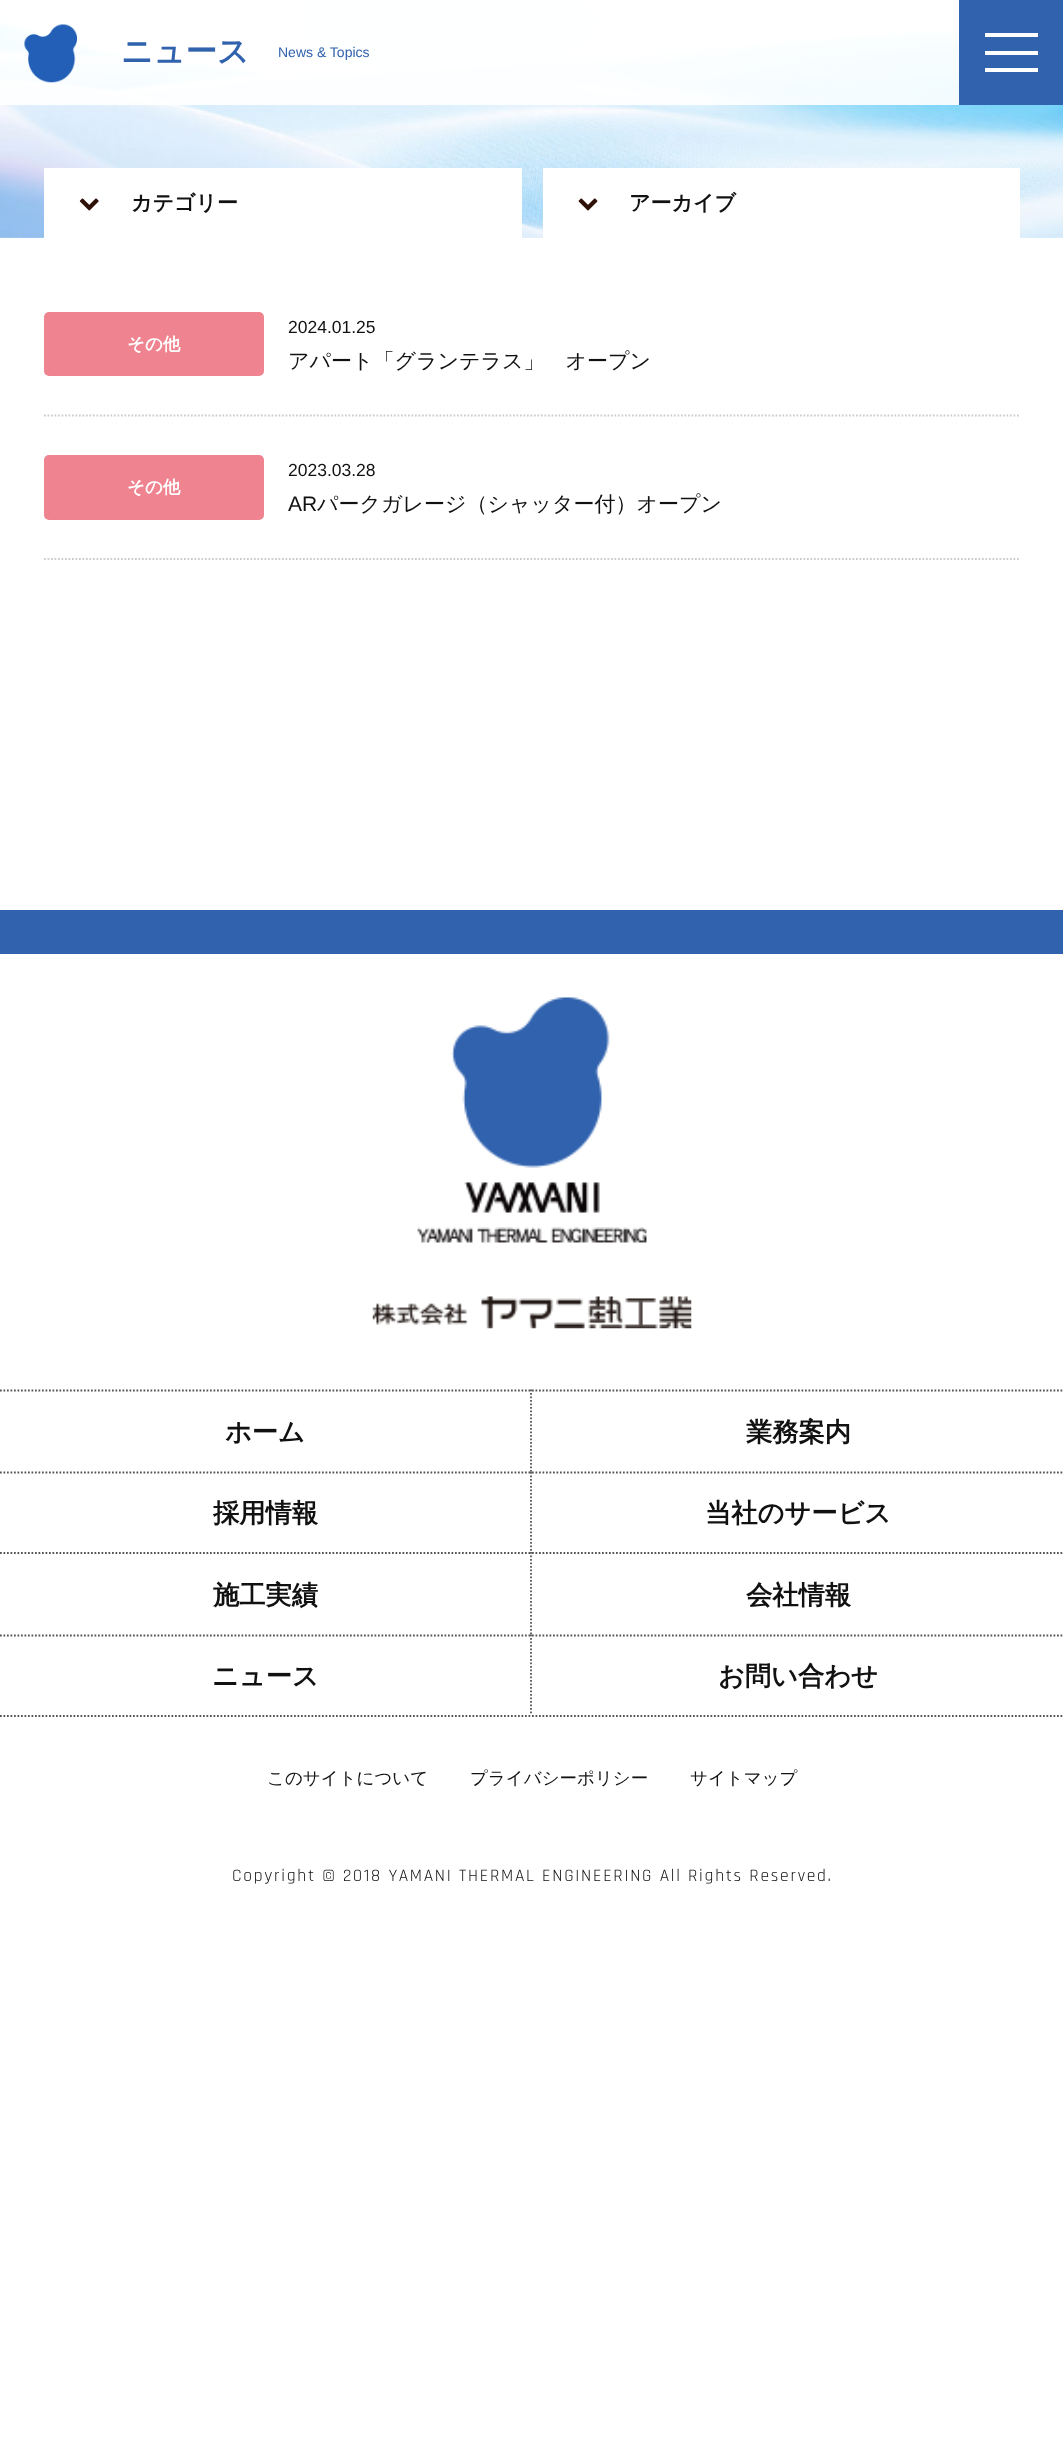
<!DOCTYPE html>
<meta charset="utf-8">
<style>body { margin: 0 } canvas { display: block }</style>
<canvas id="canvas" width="1063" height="2456"></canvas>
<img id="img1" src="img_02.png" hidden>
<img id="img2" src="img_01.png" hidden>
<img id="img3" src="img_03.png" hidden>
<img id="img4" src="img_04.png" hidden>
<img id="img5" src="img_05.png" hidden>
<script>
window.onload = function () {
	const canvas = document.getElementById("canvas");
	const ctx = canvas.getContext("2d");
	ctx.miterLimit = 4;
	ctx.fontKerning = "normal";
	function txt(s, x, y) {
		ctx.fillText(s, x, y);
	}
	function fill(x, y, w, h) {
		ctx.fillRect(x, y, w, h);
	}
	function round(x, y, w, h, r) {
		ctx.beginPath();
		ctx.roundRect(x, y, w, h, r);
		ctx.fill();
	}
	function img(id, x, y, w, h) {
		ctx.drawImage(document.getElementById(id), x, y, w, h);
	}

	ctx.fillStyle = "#FFFFFF";
	fill(0, 0, 1063, 2456);
	img("img1", 0, 0, 1063, 238);
	ctx.fillStyle = "rgba(255, 255, 255, 0.9)";
	fill(0, 0, 959, 105);
	img("img2", 24, 24, 53, 59);
	ctx.fillStyle = "#3162AE";
	fill(959, 0, 104, 105);
	ctx.fillStyle = "#FFFFFF";
	fill(985, 33, 53, 4);
	fill(985, 51, 53, 4);
	fill(985, 68, 53, 4);
	fill(44, 168, 478, 70);
	img("img3", 79, 198, 20, 13);
	fill(543, 168, 477, 70);
	img("img4", 578, 198, 20, 13);
	ctx.beginPath();
	ctx.moveTo(44, 415.5);
	ctx.lineTo(1020, 415.5);
	ctx.strokeStyle = "#CCCCCC";
	ctx.lineWidth = 1.8;
	ctx.setLineDash([1.75, 1.75]);
	ctx.stroke();
	ctx.fillStyle = "#EF838F";
	round(44, 312, 220, 64, 5);
	ctx.beginPath();
	ctx.moveTo(44, 559);
	ctx.lineTo(1020, 559);
	ctx.stroke();
	round(44, 455, 220, 65, 5);
	ctx.fillStyle = "#3162AE";
	fill(0, 910, 1063, 44);
	img("img5", 372, 997, 320, 332);
	ctx.beginPath();
	ctx.moveTo(0, 1716);
	ctx.lineTo(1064, 1716);
	ctx.strokeStyle = "#555555";
	ctx.stroke();
	ctx.beginPath();
	ctx.moveTo(0, 1390.5);
	ctx.lineTo(532, 1390.5);
	ctx.stroke();
	ctx.beginPath();
	ctx.moveTo(531, 1389.5);
	ctx.lineTo(531, 1472);
	ctx.stroke();
	ctx.beginPath();
	ctx.moveTo(532, 1390.5);
	ctx.lineTo(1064, 1390.5);
	ctx.stroke();
	ctx.beginPath();
	ctx.moveTo(0, 1472.5);
	ctx.lineTo(532, 1472.5);
	ctx.stroke();
	ctx.beginPath();
	ctx.moveTo(531, 1472);
	ctx.lineTo(531, 1552);
	ctx.stroke();
	ctx.beginPath();
	ctx.moveTo(532, 1472.5);
	ctx.lineTo(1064, 1472.5);
	ctx.stroke();
	ctx.beginPath();
	ctx.moveTo(0, 1553);
	ctx.lineTo(532, 1553);
	ctx.stroke();
	ctx.beginPath();
	ctx.moveTo(531, 1552);
	ctx.lineTo(531, 1634.5);
	ctx.stroke();
	ctx.beginPath();
	ctx.moveTo(532, 1553);
	ctx.lineTo(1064, 1553);
	ctx.stroke();
	ctx.beginPath();
	ctx.moveTo(0, 1635.5);
	ctx.lineTo(532, 1635.5);
	ctx.stroke();
	ctx.beginPath();
	ctx.moveTo(531, 1634.5);
	ctx.lineTo(531, 1715);
	ctx.stroke();
	ctx.beginPath();
	ctx.moveTo(532, 1635.5);
	ctx.lineTo(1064, 1635.5);
	ctx.stroke();
	ctx.font = "bold 31.5px WenQuanYi Zen Hei";
	txt("ニュース", 121, 62);
	ctx.font = "14px Liberation Sans";
	txt("News & Topics", 278, 57);
	ctx.font = "bold 21px WenQuanYi Zen Hei";
	ctx.fillStyle = "#111111";
	txt("カテゴリー", 131, 210);
	txt("アーカイブ", 629, 210);
	ctx.font = "bold 17.5px WenQuanYi Zen Hei";
	ctx.fillStyle = "#FFFFFF";
	txt("その他", 127, 350);
	ctx.font = "17.5px Liberation Sans";
	ctx.fillStyle = "#111111";
	txt("2024.01.25", 288, 333);
	ctx.font = "500 21px WenQuanYi Zen Hei";
	txt("アパート「グランテラス」　オープン", 288, 368);
	ctx.font = "bold 17.5px WenQuanYi Zen Hei";
	ctx.fillStyle = "#FFFFFF";
	txt("その他", 127, 493);
	ctx.font = "17.5px Liberation Sans";
	ctx.fillStyle = "#111111";
	txt("2023.03.28", 288, 476);
	ctx.font = "21px Liberation Sans";
	txt("AR", 288, 511);
	ctx.font = "500 21px WenQuanYi Zen Hei";
	txt("パークガレージ（シャッター付）オープン", 317, 511);
	ctx.font = "bold 26.25px WenQuanYi Zen Hei";
	txt("ホーム", 225, 1441);
	txt("業務案内", 746, 1441);
	txt("採用情報", 213, 1522);
	txt("当社のサービス", 705, 1522);
	txt("施工実績", 213, 1604);
	txt("会社情報", 746, 1604);
	txt("ニュース", 212, 1685);
	txt("お問い合わせ", 718, 1685);
	ctx.font = "500 17.5px WenQuanYi Zen Hei";
	txt("このサイトについて", 267, 1784);
	txt("プライバシーポリシー", 470, 1784);
	txt("サイトマップ", 690, 1784);
	ctx.letterSpacing = "1.75px";
	ctx.font = "17.5px Rajdhani";
	txt("Copyright © 2018 YAMANI THERMAL ENGINEERING All Rights Reserved.", 232, 1881);
};
</script>
